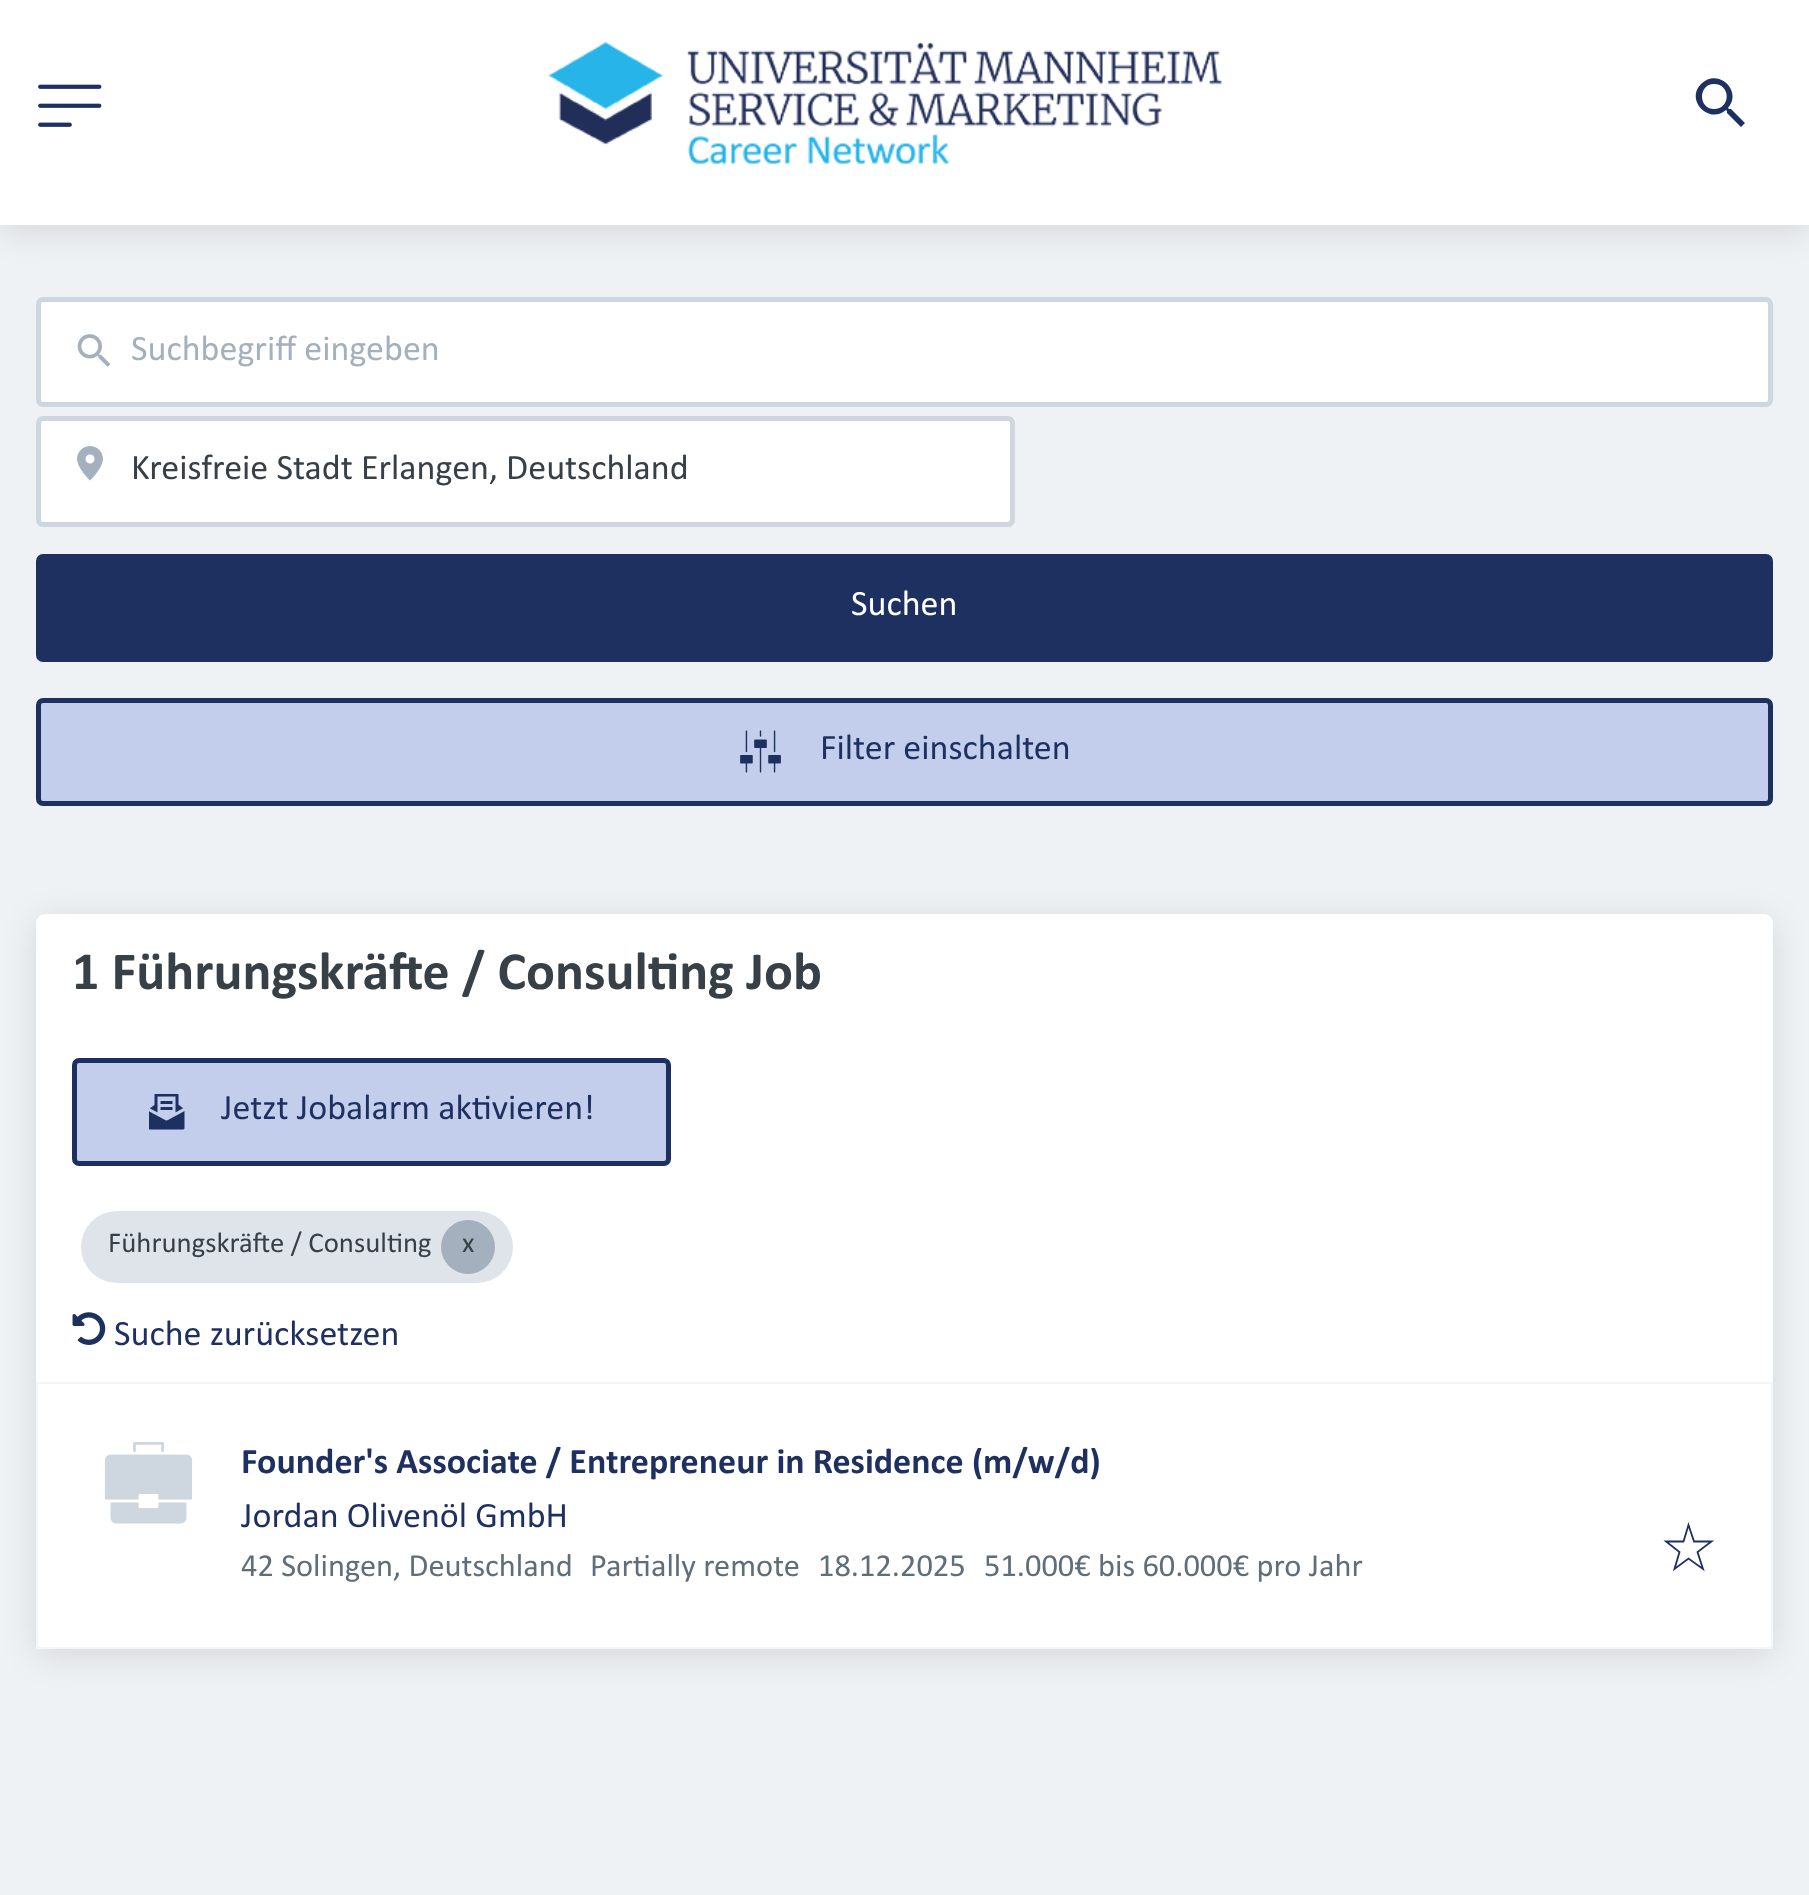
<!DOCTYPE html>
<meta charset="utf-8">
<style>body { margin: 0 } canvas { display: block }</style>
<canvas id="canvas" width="1809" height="1895"></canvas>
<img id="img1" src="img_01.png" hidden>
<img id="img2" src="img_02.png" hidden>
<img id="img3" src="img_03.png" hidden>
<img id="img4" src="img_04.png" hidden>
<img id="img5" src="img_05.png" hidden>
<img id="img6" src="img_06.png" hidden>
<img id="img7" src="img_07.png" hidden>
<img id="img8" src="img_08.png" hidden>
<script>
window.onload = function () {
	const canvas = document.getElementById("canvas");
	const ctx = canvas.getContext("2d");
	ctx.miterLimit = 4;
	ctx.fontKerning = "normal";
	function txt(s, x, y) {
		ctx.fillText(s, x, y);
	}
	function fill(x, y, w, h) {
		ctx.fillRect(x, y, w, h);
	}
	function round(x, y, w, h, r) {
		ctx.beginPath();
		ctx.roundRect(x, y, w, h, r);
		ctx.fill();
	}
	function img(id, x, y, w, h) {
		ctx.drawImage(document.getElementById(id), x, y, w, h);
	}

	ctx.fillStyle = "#EFF2F4";
	fill(0, 0, 1809, 1895);
	ctx.fillStyle = "rgba(0, 0, 0, 0.1)";
	ctx.filter = "blur(17px)";
	ctx.beginPath();
	ctx.rect(0, 7, 1809, 225);
	ctx.fill();
	ctx.filter = "none";
	ctx.fillStyle = "#FFFFFF";
	fill(0, 0, 1809, 225);
	img("img1", 38, 84, 64, 43);
	img("img2", 548, 41, 674, 123);
	ctx.fillStyle = "#1E305F";
	ctx.beginPath();
	ctx.moveTo(1731, 109);
	ctx.lineTo(1729, 109);
	ctx.lineTo(1728, 108);
	ctx.bezierCurveTo(1743, 91, 1718, 67, 1701, 84);
	ctx.bezierCurveTo(1685, 100, 1709, 125, 1726, 110);
	ctx.lineTo(1727, 111);
	ctx.lineTo(1727, 113);
	ctx.lineTo(1741, 127);
	ctx.lineTo(1745, 123);
	ctx.closePath();
	ctx.moveTo(1714, 109);
	ctx.bezierCurveTo(1698, 109, 1698, 84, 1714, 84);
	ctx.bezierCurveTo(1731, 84, 1731, 109, 1714, 109);
	ctx.closePath();
	ctx.fill();
	ctx.fillStyle = "#FFFFFF";
	ctx.beginPath();
	ctx.roundRect(38.5, 299.5, 1732, 105, 4.5);
	ctx.fill();
	ctx.strokeStyle = "#CED7E0";
	ctx.lineWidth = 5;
	ctx.stroke();
	img("img3", 77, 334, 34, 33);
	ctx.beginPath();
	ctx.roundRect(38.5, 418.5, 974, 106, 4.5);
	ctx.fill();
	ctx.stroke();
	img("img4", 77, 446, 26, 35);
	ctx.fillStyle = "#1E305F";
	ctx.beginPath();
	ctx.roundRect(38.5, 556.5, 1732, 103, 4.5);
	ctx.fill();
	ctx.strokeStyle = "#1E305F";
	ctx.stroke();
	ctx.fillStyle = "#C3CEEC";
	ctx.beginPath();
	ctx.roundRect(38.5, 700.5, 1732, 103, 4.5);
	ctx.fill();
	ctx.stroke();
	img("img5", 740, 730, 41, 43);
	ctx.fillStyle = "rgba(0, 0, 0, 0.1)";
	ctx.filter = "blur(17px)";
	ctx.beginPath();
	ctx.roundRect(36, 920, 1737, 736, 9);
	ctx.fill();
	ctx.filter = "none";
	ctx.fillStyle = "#FFFFFF";
	round(36, 914, 1737, 735, 9);
	ctx.fillStyle = "#C3CEEC";
	ctx.beginPath();
	ctx.roundRect(74.5, 1060.5, 594, 103, 4.5);
	ctx.fill();
	ctx.stroke();
	img("img6", 149, 1094, 36, 36);
	ctx.fillStyle = "#DFE4EA";
	round(81, 1211, 432, 72, 36);
	ctx.fillStyle = "#A4B0BE";
	ctx.beginPath();
	ctx.arc(468, 1247, 27, 0, Math.PI * 2);
	ctx.fill();
	img("img7", 72, 1312, 34, 33);
	ctx.fillStyle = "#FFFFFF";
	fill(38, 1646, 1733, 1);
	ctx.strokeStyle = "#F5F5F5";
	ctx.lineWidth = 2;
	ctx.strokeRect(37, 1383, 1735, 265);
	img("img8", 104, 1442, 89, 82);
	ctx.beginPath();
	ctx.moveTo(1688.5, 1525);
	ctx.lineTo(1694, 1541.5);
	ctx.lineTo(1711.5, 1541.5);
	ctx.lineTo(1697.5, 1552);
	ctx.lineTo(1703, 1569);
	ctx.lineTo(1688.5, 1558.5);
	ctx.lineTo(1674.5, 1569);
	ctx.lineTo(1679.5, 1552);
	ctx.lineTo(1666, 1541.5);
	ctx.lineTo(1683.5, 1541.5);
	ctx.closePath();
	ctx.strokeStyle = "#1E305F";
	ctx.lineWidth = 1.8;
	ctx.lineCap = "square";
	ctx.stroke();
	ctx.font = "36px Calibri";
	ctx.fillStyle = "#A4B0BE";
	txt("Suchbegriff eingeben", 131, 360);
	ctx.fillStyle = "#374047";
	txt("Kreisfreie Stadt Erlangen, Deutschland", 131, 479);
	ctx.fillStyle = "#FFFFFF";
	txt("Suchen", 851, 615);
	ctx.fillStyle = "#1E305F";
	txt("Filter einschalten", 820, 759);
	ctx.font = "bold 54px Calibri";
	ctx.fillStyle = "#374047";
	txt("1 Führungskräfte / Consulting Job", 72, 989);
	ctx.font = "36px Calibri";
	ctx.fillStyle = "#1E305F";
	txt("Jetzt Jobalarm aktivieren!", 221, 1119);
	ctx.font = "28.75px Calibri";
	ctx.fillStyle = "#374047";
	txt("Führungskräfte / Consulting", 108, 1252);
	txt("x", 462, 1252);
	ctx.font = "36px Calibri";
	ctx.fillStyle = "#1E305F";
	txt("Suche zurücksetzen", 114, 1345);
	ctx.font = "bold 36px Calibri";
	txt("Founder's Associate / Entrepreneur in Residence (m/w/d)", 241, 1473);
	ctx.font = "36px Calibri";
	txt("Jordan Olivenöl GmbH", 241, 1527);
	ctx.font = "32.4px Calibri";
	ctx.fillStyle = "#5F6E78";
	txt("42 Solingen, Deutschland", 241, 1576);
	txt("Partially remote", 590, 1576);
	txt("18.12.2025", 818, 1576);
	txt("51.000€ bis 60.000€ pro Jahr", 984, 1576);
};
</script>
